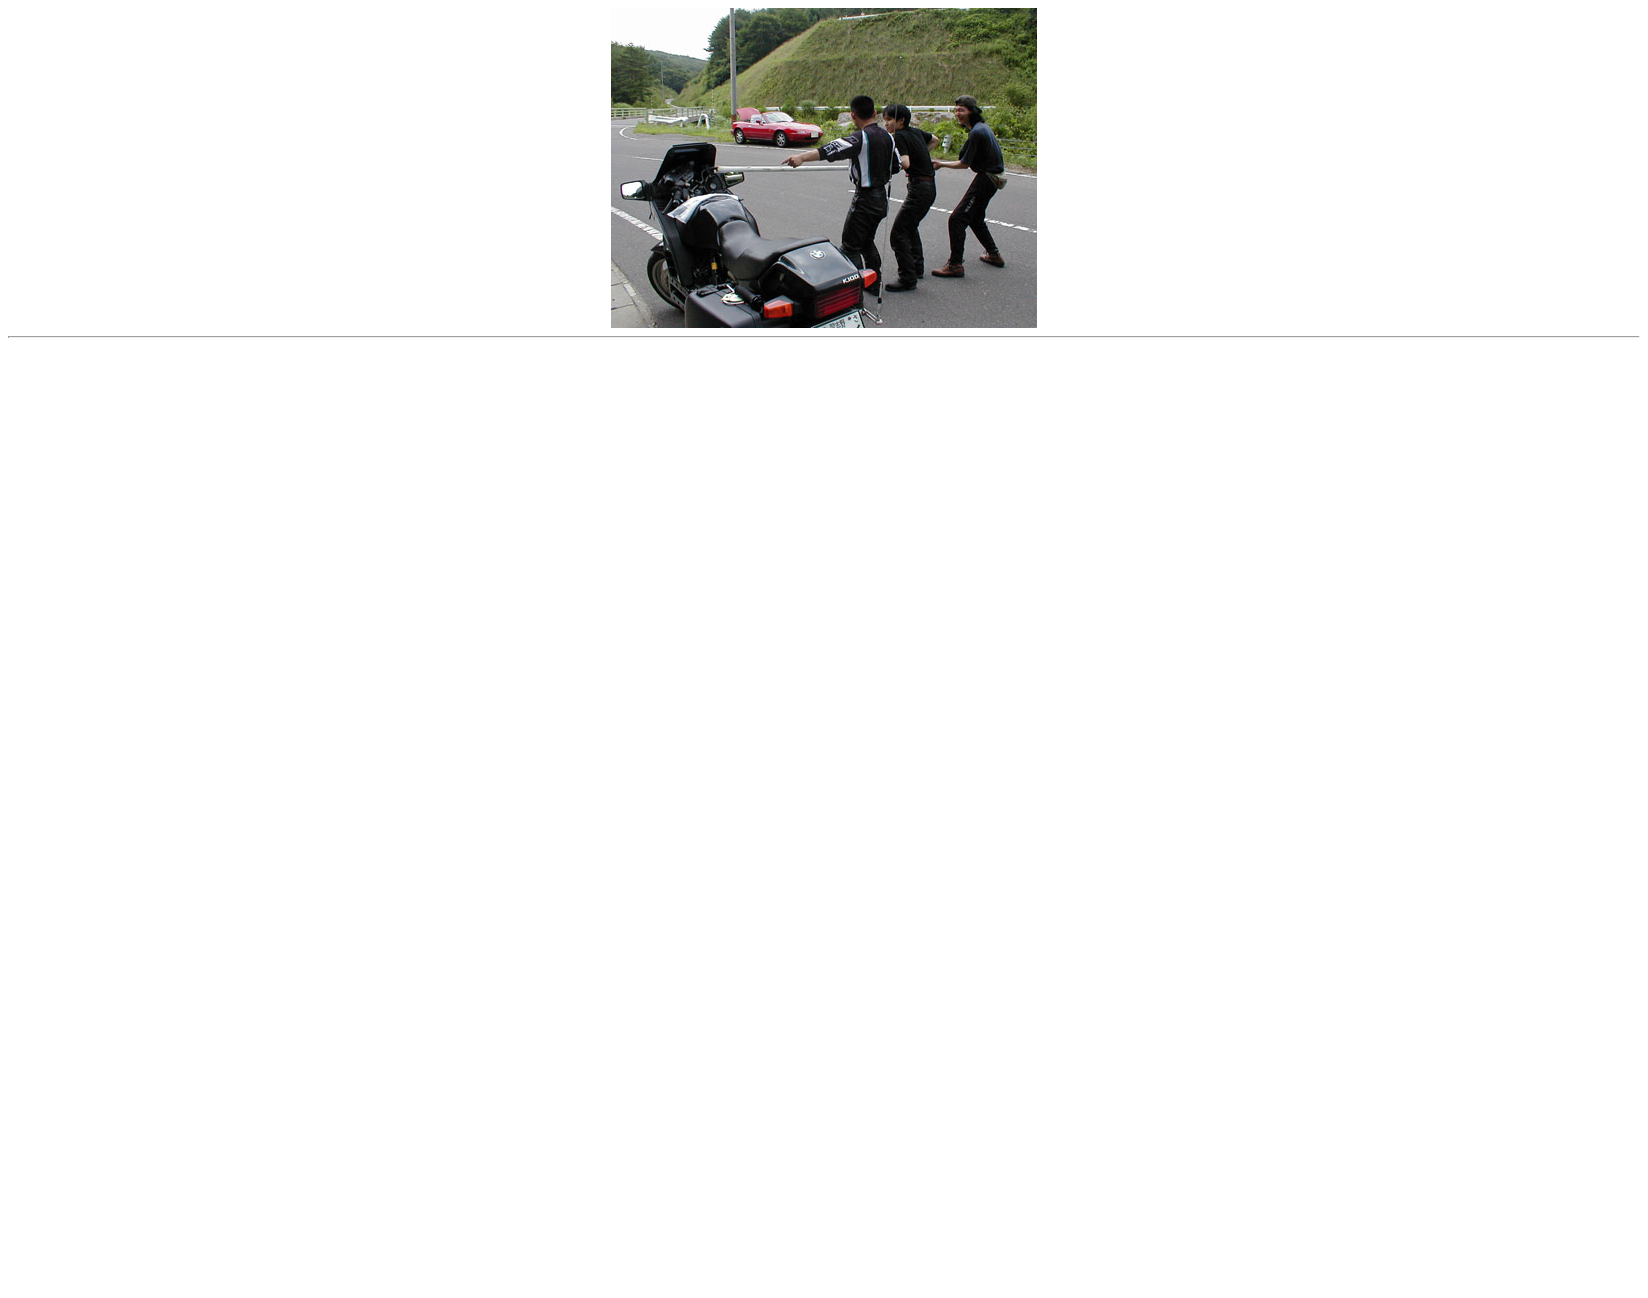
<!DOCTYPE html>
<meta charset="utf-8">
<style>body { margin: 0 } canvas { display: block }</style>
<canvas id="canvas" width="1648" height="1298"></canvas>
<img id="img1" src="img_01.png" hidden>
<script>
window.onload = function () {
	const canvas = document.getElementById("canvas");
	const ctx = canvas.getContext("2d");
	ctx.miterLimit = 4;
	ctx.fontKerning = "normal";
	function fill(x, y, w, h) {
		ctx.fillRect(x, y, w, h);
	}
	function img(id, x, y, w, h) {
		ctx.drawImage(document.getElementById(id), x, y, w, h);
	}

	ctx.fillStyle = "#FFFFFF";
	fill(0, 0, 1648, 1298);
	img("img1", 611, 8, 426, 320);
	ctx.fillStyle = "#9F9F9F";
	fill(8, 336, 1632, 1);
	ctx.fillStyle = "#EEEEEE";
	fill(1639, 336, 1, 2);
	fill(8, 337, 1632, 1);
	ctx.fillStyle = "#9F9F9F";
	fill(8, 336, 1, 2);
};
</script>
